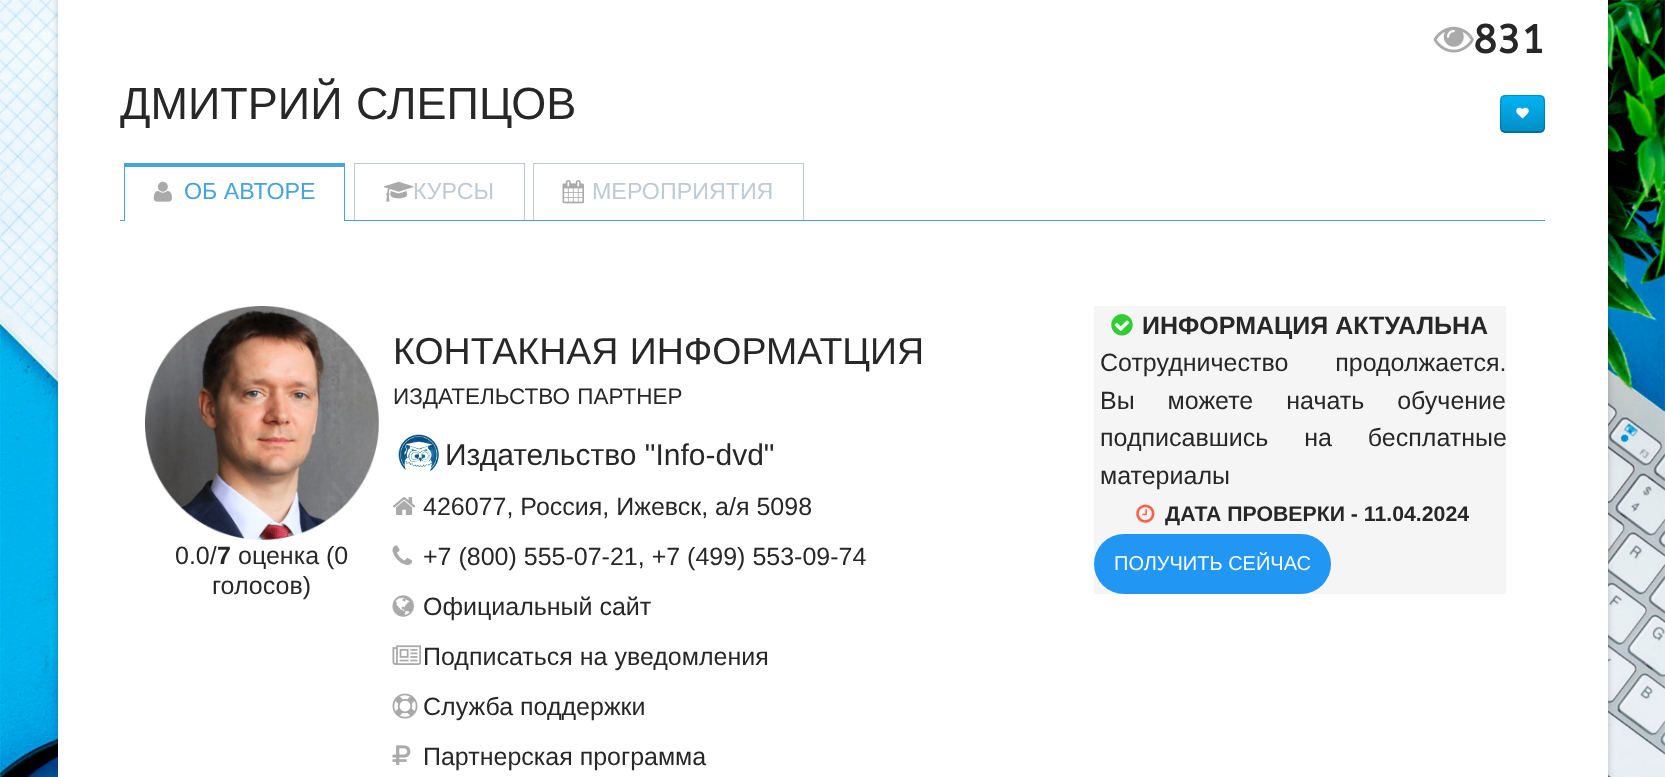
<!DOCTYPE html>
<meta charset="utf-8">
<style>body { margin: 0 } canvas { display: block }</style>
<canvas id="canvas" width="1665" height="777"></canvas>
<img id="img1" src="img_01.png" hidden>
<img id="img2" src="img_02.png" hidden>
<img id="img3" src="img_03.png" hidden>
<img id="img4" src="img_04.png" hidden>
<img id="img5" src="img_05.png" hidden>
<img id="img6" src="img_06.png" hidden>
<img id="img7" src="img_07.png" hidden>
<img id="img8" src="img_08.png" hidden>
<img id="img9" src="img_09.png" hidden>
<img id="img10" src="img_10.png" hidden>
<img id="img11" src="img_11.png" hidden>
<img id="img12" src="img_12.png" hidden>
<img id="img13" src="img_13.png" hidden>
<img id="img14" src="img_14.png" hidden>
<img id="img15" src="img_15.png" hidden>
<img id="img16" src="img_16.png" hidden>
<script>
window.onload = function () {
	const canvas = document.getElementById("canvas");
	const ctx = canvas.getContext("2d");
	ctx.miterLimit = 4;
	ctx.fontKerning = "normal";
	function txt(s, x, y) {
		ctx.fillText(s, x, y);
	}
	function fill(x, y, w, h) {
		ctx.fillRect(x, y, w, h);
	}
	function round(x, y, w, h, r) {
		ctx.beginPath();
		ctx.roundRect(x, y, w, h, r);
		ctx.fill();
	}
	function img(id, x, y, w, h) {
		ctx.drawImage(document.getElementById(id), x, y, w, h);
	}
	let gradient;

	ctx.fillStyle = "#FFFFFF";
	fill(0, 0, 1665, 777);
	img("img1", 0, 0, 1665, 777);
	ctx.fillStyle = "rgba(0, 0, 0, 0.2)";
	ctx.filter = "blur(3px)";
	ctx.beginPath();
	ctx.rect(58, -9, 1550, 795);
	ctx.fill();
	ctx.filter = "none";
	ctx.fillStyle = "#FFFFFF";
	fill(58, 0, 1550, 777);
	img("img2", 1433, 26, 41, 27);
	gradient = ctx.createLinearGradient(1523, 95, 1523, 133);
	gradient.addColorStop(0, "#00B4F5");
	gradient.addColorStop(1, "#008DC5");
	ctx.fillStyle = gradient;
	round(1500, 95, 45, 38, 5);
	ctx.beginPath();
	ctx.moveTo(1543, 130.5);
	ctx.bezierCurveTo(1542.5, 131.5, 1541, 132, 1540, 132);
	ctx.lineTo(1505, 132);
	ctx.bezierCurveTo(1504, 132, 1502.5, 131.5, 1502, 130.5);
	ctx.strokeStyle = "#005677";
	ctx.lineWidth = 1.2;
	ctx.stroke();
	ctx.beginPath();
	ctx.moveTo(1502, 130.5);
	ctx.bezierCurveTo(1500, 128.5, 1500.5, 125.5, 1500.5, 123);
	ctx.lineTo(1500.5, 114);
	ctx.bezierCurveTo(1500.5, 91.5, 1498.5, 95.5, 1522.5, 95.5);
	ctx.bezierCurveTo(1546.5, 95.5, 1544.5, 91.5, 1544.5, 114);
	ctx.lineTo(1544.5, 123);
	ctx.bezierCurveTo(1544.5, 125.5, 1545, 128.5, 1543, 130.5);
	ctx.strokeStyle = "rgba(0, 0, 0, 0.2)";
	ctx.stroke();
	img("img3", 1516, 107, 13, 12);
	ctx.fillStyle = "#47A3DA";
	fill(125, 164, 219, 3);
	fill(124, 163, 221, 1);
	fill(344, 163, 1, 58);
	fill(124, 163, 1, 58);
	img("img4", 153, 181, 19, 21);
	fill(120, 220, 5, 1);
	ctx.fillStyle = "#BECBD2";
	fill(354, 163, 171, 1);
	fill(524, 163, 1, 58);
	fill(354, 163, 1, 58);
	fill(533, 163, 271, 1);
	fill(803, 163, 1, 58);
	fill(533, 163, 1, 58);
	ctx.fillStyle = "#47A3DA";
	fill(344, 220, 1201, 1);
	img("img5", 383, 181, 31, 21);
	img("img6", 562, 180, 22, 24);
	img("img7", 145, 306, 234, 234);
	img("img8", 398, 434, 41, 38);
	img("img9", 393, 497, 23, 18);
	img("img10", 392, 545, 21, 20);
	img("img11", 392, 595, 22, 22);
	img("img12", 392, 645, 30, 20);
	img("img13", 392, 693, 26, 26);
	img("img14", 392, 745, 19, 20);
	ctx.fillStyle = "#F5F5F5";
	fill(1094, 306, 412, 288);
	img("img15", 1111, 314, 22, 22);
	img("img16", 1136, 504, 19, 19);
	ctx.fillStyle = "#2196F3";
	round(1094, 534, 237, 60, 30);
	ctx.font = "bold 40px ABeeZee";
	ctx.fillStyle = "#272727";
	txt("831", 1473, 53);
	ctx.wordSpacing = "1px";
	ctx.font = "45px Liberation Sans";
	txt("ДМИТРИЙ СЛЕПЦОВ", 120, 119);
	ctx.wordSpacing = "0px";
	ctx.font = "23.25px Liberation Sans";
	ctx.fillStyle = "#47A3DA";
	txt("ОБ АВТОРЕ", 184, 199);
	ctx.fillStyle = "#BECBD2";
	txt("КУРСЫ", 413, 199);
	txt("МЕРОПРИЯТИЯ", 592, 199);
	ctx.font = "25px Liberation Sans";
	ctx.fillStyle = "#272727";
	txt("0.0/", 175, 564);
	ctx.font = "bold 25px Liberation Sans";
	txt("7", 217, 564);
	ctx.font = "25px Liberation Sans";
	txt("оценка (0", 238, 564);
	txt("голосов)", 212, 594);
	ctx.wordSpacing = "1px";
	ctx.font = "37.5px Liberation Sans";
	txt("КОНТАКНАЯ ИНФОРМАТЦИЯ", 393, 364);
	ctx.font = "22.5px Liberation Sans";
	txt("ИЗДАТЕЛЬСТВО ПАРТНЕР", 393, 404);
	ctx.wordSpacing = "0px";
	ctx.font = "30px Liberation Sans";
	txt("Издательство \"Info-dvd\"", 445, 465);
	ctx.font = "25px Liberation Sans";
	txt("426077, Россия, Ижевск, а/я 5098", 423, 515);
	txt("+7 (800) 555-07-21, +7 (499) 553-09-74", 423, 565);
	txt("Официальный сайт", 423, 615);
	txt("Подписаться на уведомления", 423, 665);
	txt("Служба поддержки", 423, 715);
	txt("Партнерская программа", 423, 765);
	ctx.font = "bold 25px Liberation Sans";
	txt("ИНФОРМАЦИЯ АКТУАЛЬНА", 1142, 334);
	ctx.wordSpacing = "40px";
	ctx.font = "25px Liberation Sans";
	txt("Сотрудничество продолжается.", 1100, 371);
	ctx.wordSpacing = "26px";
	txt("Вы можете начать обучение", 1100, 409);
	ctx.wordSpacing = "29px";
	txt("подписавшись на бесплатные", 1100, 446);
	ctx.wordSpacing = "0px";
	txt("материалы", 1100, 484);
	ctx.font = "bold 21.25px Liberation Sans";
	txt("ДАТА ПРОВЕРКИ - 11.04.2024", 1165, 521);
	ctx.font = "20px Liberation Sans";
	ctx.fillStyle = "#FFFFFF";
	txt("ПОЛУЧИТЬ СЕЙЧАС", 1114, 570);
};
</script>
